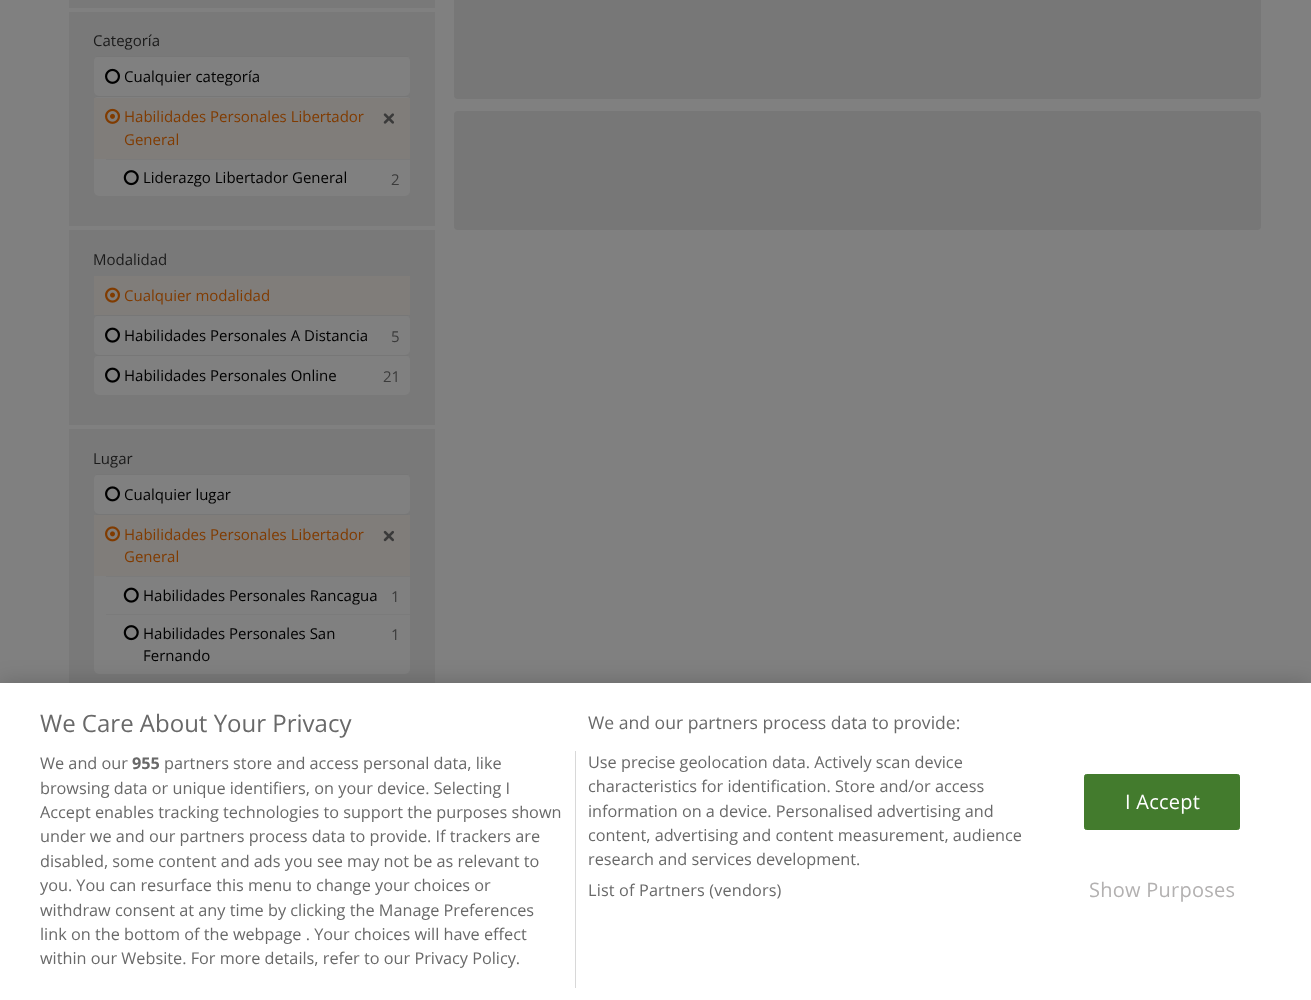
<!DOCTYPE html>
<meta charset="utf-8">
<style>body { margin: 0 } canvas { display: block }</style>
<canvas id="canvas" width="1311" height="1000"></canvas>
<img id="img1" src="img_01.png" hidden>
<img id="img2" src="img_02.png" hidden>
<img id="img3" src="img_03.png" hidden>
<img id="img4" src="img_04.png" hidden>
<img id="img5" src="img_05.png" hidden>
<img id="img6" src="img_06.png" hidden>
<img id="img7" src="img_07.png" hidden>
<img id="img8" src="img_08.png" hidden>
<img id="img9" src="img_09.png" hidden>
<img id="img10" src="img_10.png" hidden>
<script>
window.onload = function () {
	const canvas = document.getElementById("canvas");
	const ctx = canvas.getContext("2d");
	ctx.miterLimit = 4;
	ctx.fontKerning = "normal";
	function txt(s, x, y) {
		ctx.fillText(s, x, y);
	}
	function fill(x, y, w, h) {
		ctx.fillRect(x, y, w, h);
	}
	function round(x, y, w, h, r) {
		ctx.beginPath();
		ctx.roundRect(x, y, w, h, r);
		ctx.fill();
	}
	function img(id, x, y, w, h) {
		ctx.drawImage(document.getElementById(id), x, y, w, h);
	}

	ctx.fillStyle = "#808080";
	fill(0, 0, 1311, 1000);
	ctx.fillStyle = "#797979";
	fill(69, 0, 366, 683);
	ctx.fillStyle = "#808080";
	fill(69, 8, 366, 4);
	fill(69, 226, 366, 4);
	round(94, 56, 316, 40, 5);
	ctx.fillStyle = "#777777";
	fill(96, 56, 312, 1);
	img("img1", 105, 68, 15, 16);
	ctx.fillStyle = "#808080";
	round(94, 96, 316, 100, 5);
	ctx.fillStyle = "#777777";
	fill(96, 96, 312, 1);
	ctx.fillStyle = "#807D7A";
	fill(94, 98, 316, 61);
	img("img2", 105, 108, 15, 16);
	img("img3", 383, 113, 11, 11);
	ctx.fillStyle = "#7B7B7B";
	fill(106, 159, 304, 1);
	img("img4", 123, 170, 16, 16);
	ctx.fillStyle = "#808080";
	fill(69, 425, 366, 4);
	ctx.fillStyle = "#807D7A";
	fill(94, 276, 316, 39);
	img("img5", 105, 287, 15, 16);
	ctx.fillStyle = "#808080";
	round(94, 315, 316, 40, 5);
	ctx.fillStyle = "#777777";
	fill(96, 315, 312, 1);
	img("img6", 105, 327, 15, 16);
	ctx.fillStyle = "#808080";
	round(94, 355, 316, 40, 5);
	ctx.fillStyle = "#777777";
	fill(96, 355, 312, 1);
	img("img6", 105, 367, 15, 16);
	ctx.fillStyle = "#808080";
	round(94, 474, 316, 40, 5);
	ctx.fillStyle = "#777777";
	fill(96, 474, 312, 1);
	img("img7", 105, 486, 15, 16);
	ctx.fillStyle = "#808080";
	round(94, 514, 316, 160, 5);
	ctx.fillStyle = "#777777";
	fill(96, 514, 312, 1);
	ctx.fillStyle = "#807D7A";
	fill(94, 515, 316, 61);
	img("img8", 105, 526, 15, 16);
	img("img9", 383, 530, 11, 12);
	ctx.fillStyle = "#7B7B7B";
	fill(106, 576, 304, 1);
	img("img10", 123, 587, 16, 16);
	fill(106, 614, 304, 1);
	img("img4", 123, 625, 16, 16);
	ctx.fillStyle = "#777777";
	round(454, -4, 807, 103, 4);
	round(454, 111, 807, 119, 4);
	ctx.fillStyle = "rgba(0, 0, 0, 0.2)";
	ctx.filter = "blur(11px)";
	ctx.beginPath();
	ctx.rect(0, 683, 1311, 317);
	ctx.fill();
	ctx.filter = "none";
	ctx.fillStyle = "#FFFFFF";
	fill(0, 683, 1311, 317);
	ctx.fillStyle = "#D8D8D8";
	fill(575, 751, 1, 237);
	ctx.fillStyle = "#437B2D";
	ctx.beginPath();
	ctx.roundRect(1084.5, 774.5, 155, 55, 2);
	ctx.fill();
	ctx.strokeStyle = "#437B2D";
	ctx.stroke();
	ctx.font = "15px Open Sans";
	ctx.fillStyle = "#1A1A1A";
	txt("Categoría", 93, 46);
	ctx.fillStyle = "#000000";
	txt("Cualquier categoría", 124, 82);
	ctx.fillStyle = "#803B00";
	txt("Habilidades Personales Libertador", 124, 122);
	txt("General", 124, 145);
	ctx.fillStyle = "#000000";
	txt("Liderazgo Libertador General", 143, 183);
	ctx.fillStyle = "#3B3B3B";
	txt("2", 391, 185);
	ctx.fillStyle = "#1A1A1A";
	txt("Modalidad", 93, 265);
	ctx.fillStyle = "#803B00";
	txt("Cualquier modalidad", 124, 301);
	ctx.fillStyle = "#000000";
	txt("Habilidades Personales A Distancia", 124, 341);
	ctx.fillStyle = "#3B3B3B";
	txt("5", 391, 342);
	ctx.fillStyle = "#000000";
	txt("Habilidades Personales Online", 124, 381);
	ctx.fillStyle = "#3B3B3B";
	txt("21", 383, 382);
	ctx.fillStyle = "#1A1A1A";
	txt("Lugar", 93, 464);
	ctx.fillStyle = "#000000";
	txt("Cualquier lugar", 124, 500);
	ctx.fillStyle = "#803B00";
	txt("Habilidades Personales Libertador", 124, 540);
	txt("General", 124, 562);
	ctx.fillStyle = "#000000";
	txt("Habilidades Personales Rancagua", 143, 601);
	ctx.fillStyle = "#3B3B3B";
	txt("1", 391, 602);
	ctx.fillStyle = "#000000";
	txt("Habilidades Personales San", 143, 639);
	txt("Fernando", 143, 661);
	ctx.fillStyle = "#3B3B3B";
	txt("1", 391, 640);
	ctx.font = "24px Open Sans";
	ctx.fillStyle = "#696969";
	txt("We Care About Your Privacy", 40, 732);
	ctx.font = "17.6px Open Sans";
	txt("We and our partners process data to provide:", 588, 729);
	ctx.font = "16.25px Open Sans";
	txt("Use precise geolocation data. Actively scan device", 588, 768);
	txt("characteristics for identification. Store and/or access", 588, 792);
	txt("information on a device. Personalised advertising and", 588, 817);
	txt("content, advertising and content measurement, audience", 588, 841);
	txt("research and services development.", 588, 865);
	ctx.letterSpacing = "0.15px";
	txt("List of Partners (vendors)", 588, 896);
	ctx.letterSpacing = "0px";
	txt("We and our", 40, 769);
	ctx.font = "bold 16.25px Open Sans";
	txt("955", 132, 769);
	ctx.font = "16.25px Open Sans";
	txt("partners store and access personal data, like", 164, 769);
	txt("browsing data or unique identifiers, on your device. Selecting I", 40, 794);
	txt("Accept enables tracking technologies to support the purposes shown", 40, 818);
	txt("under we and our partners process data to provide. If trackers are", 40, 842);
	txt("disabled, some content and ads you see may not be as relevant to", 40, 867);
	txt("you. You can resurface this menu to change your choices or", 40, 891);
	txt("withdraw consent at any time by clicking the Manage Preferences", 40, 916);
	txt("link on the bottom of the webpage . Your choices will have effect", 40, 940);
	txt("within our Website. For more details, refer to our Privacy Policy.", 40, 964);
	ctx.letterSpacing = "0.25px";
	ctx.font = "20px Open Sans";
	ctx.fillStyle = "#FFFFFF";
	txt("I Accept", 1125, 809);
	ctx.fillStyle = "#B3B1B1";
	txt("Show Purposes", 1089, 897);
};
</script>
